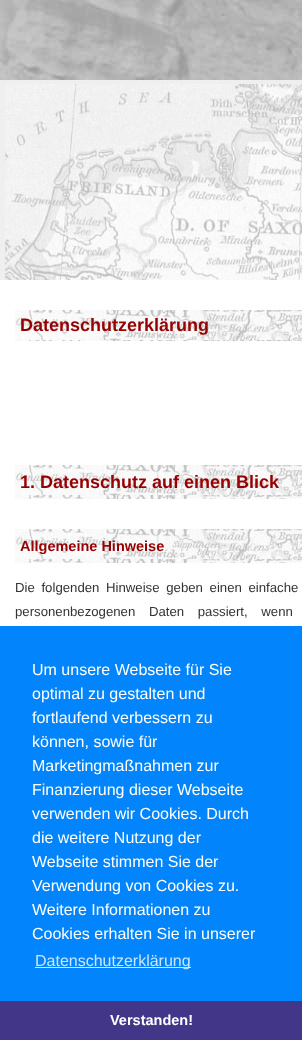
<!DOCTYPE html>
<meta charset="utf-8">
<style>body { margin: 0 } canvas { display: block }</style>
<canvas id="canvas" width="302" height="1040"></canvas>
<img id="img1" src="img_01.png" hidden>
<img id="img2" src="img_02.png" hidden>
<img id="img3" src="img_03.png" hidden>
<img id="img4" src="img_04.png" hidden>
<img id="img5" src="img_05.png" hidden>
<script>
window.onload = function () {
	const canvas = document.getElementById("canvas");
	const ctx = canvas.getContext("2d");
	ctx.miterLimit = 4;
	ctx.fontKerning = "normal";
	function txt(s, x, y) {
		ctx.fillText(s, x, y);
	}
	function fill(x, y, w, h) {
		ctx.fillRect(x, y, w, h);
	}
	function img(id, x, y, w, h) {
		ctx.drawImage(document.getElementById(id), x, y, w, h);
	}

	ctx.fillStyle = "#FFFFFF";
	fill(0, 0, 302, 1040);
	img("img1", 0, 0, 302, 80);
	img("img2", 0, 80, 1, 200);
	ctx.fillStyle = "#EFEFEF";
	fill(1, 80, 301, 200);
	img("img3", 5, 84, 297, 196);
	img("img4", 15, 310, 287, 31);
	img("img5", 15, 465, 287, 34);
	img("img5", 15, 529, 287, 34);
	ctx.fillStyle = "#0184FC";
	fill(0, 626, 302, 375);
	ctx.fillStyle = "#CCE6FE";
	fill(35, 967, 156, 1);
	ctx.fillStyle = "#423688";
	fill(0, 1001, 302, 39);
	ctx.font = "bold 18px Liberation Sans";
	ctx.fillStyle = "#970000";
	txt("Datenschutzerklärung", 20, 331);
	txt("1. Datenschutz auf einen Blick", 20, 488);
	ctx.font = "bold 14.5px Liberation Sans";
	txt("Allgemeine Hinweise", 20, 551);
	ctx.wordSpacing = "3px";
	ctx.font = "13.2px Liberation Sans";
	ctx.fillStyle = "#333333";
	txt("Die folgenden Hinweise geben einen einfache", 15, 592);
	ctx.wordSpacing = "10px";
	txt("personenbezogenen Daten passiert, wenn", 15, 616);
	ctx.wordSpacing = "0px";
	ctx.font = "16px Liberation Sans";
	ctx.fillStyle = "#FFFFFF";
	txt("Um unsere Webseite für Sie", 32, 675);
	txt("optimal zu gestalten und", 32, 699);
	txt("fortlaufend verbessern zu", 32, 723);
	txt("können, sowie für", 32, 747);
	txt("Marketingmaßnahmen zur", 32, 771);
	txt("Finanzierung dieser Webseite", 32, 795);
	txt("verwenden wir Cookies. Durch", 32, 819);
	txt("die weitere Nutzung der", 32, 843);
	txt("Webseite stimmen Sie der", 32, 867);
	txt("Verwendung von Cookies zu.", 32, 891);
	txt("Weitere Informationen zu", 32, 915);
	txt("Cookies erhalten Sie in unserer", 32, 939);
	ctx.fillStyle = "#CCE6FE";
	txt("Datenschutzerklärung", 35, 966);
	ctx.font = "bold 14.5px Liberation Sans";
	ctx.fillStyle = "#FFFFFF";
	txt("Verstanden!", 110, 1025);
};
</script>
